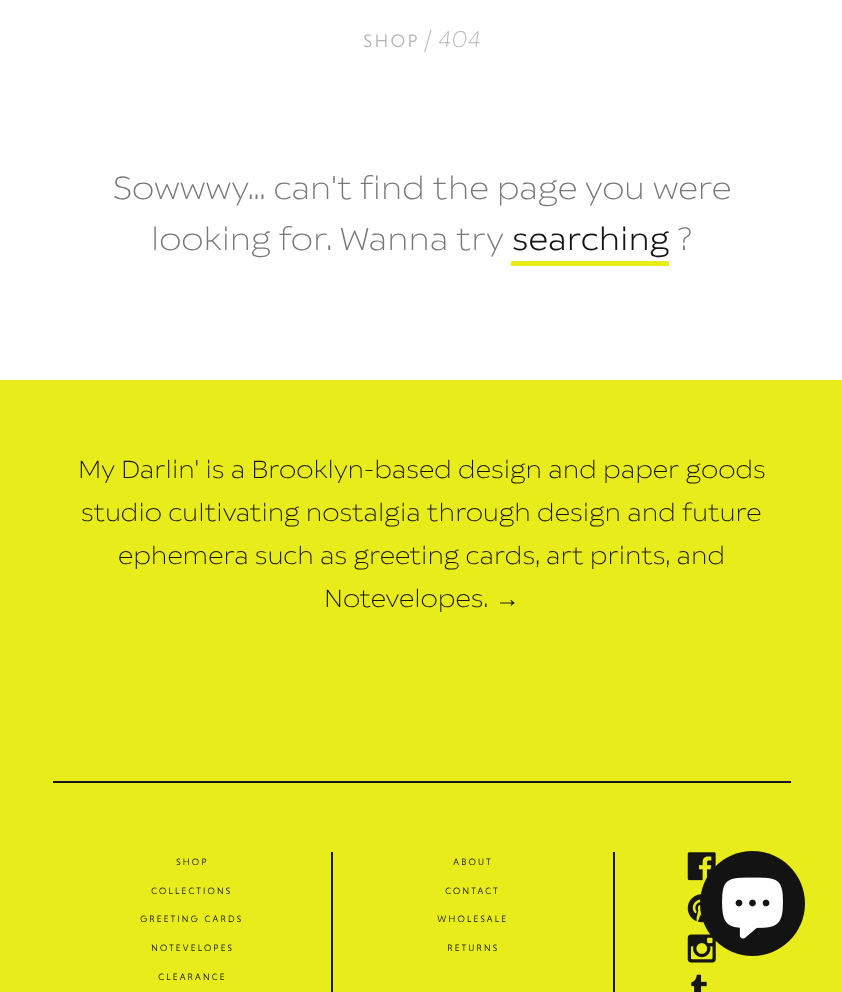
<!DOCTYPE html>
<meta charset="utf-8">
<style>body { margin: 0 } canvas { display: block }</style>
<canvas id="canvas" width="842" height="992"></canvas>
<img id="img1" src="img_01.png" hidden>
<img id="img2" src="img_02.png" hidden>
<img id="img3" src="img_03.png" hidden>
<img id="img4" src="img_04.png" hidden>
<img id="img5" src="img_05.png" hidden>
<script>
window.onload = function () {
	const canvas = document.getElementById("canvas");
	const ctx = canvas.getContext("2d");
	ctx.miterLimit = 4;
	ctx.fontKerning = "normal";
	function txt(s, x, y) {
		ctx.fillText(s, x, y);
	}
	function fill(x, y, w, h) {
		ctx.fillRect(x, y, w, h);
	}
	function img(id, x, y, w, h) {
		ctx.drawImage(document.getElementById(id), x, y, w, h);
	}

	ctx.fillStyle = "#FFFFFF";
	fill(0, 0, 842, 992);
	ctx.fillStyle = "#E9EC1B";
	fill(511, 261, 158, 5);
	fill(0, 380, 842, 612);
	ctx.fillStyle = "#151515";
	fill(53, 781, 738, 2);
	fill(331, 852, 2, 140);
	fill(613, 852, 2, 140);
	img("img1", 687, 852, 29, 29);
	img("img2", 687, 894, 17, 29);
	img("img3", 687, 934, 29, 29);
	img("img4", 691, 974, 16, 18);
	ctx.fillStyle = "#131313";
	ctx.beginPath();
	ctx.arc(752.5, 903.5, 52.5, 0, Math.PI * 2);
	ctx.fill();
	img("img5", 722, 877, 61, 62);
	ctx.letterSpacing = "1.75px";
	ctx.font = "300 24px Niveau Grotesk";
	ctx.fillStyle = "#B5B5B5";
	txt("shop", 363, 47);
	ctx.letterSpacing = "0px";
	ctx.font = "italic 100 24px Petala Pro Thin";
	txt("/ 404", 424, 47);
	ctx.font = "200 31.5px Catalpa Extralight";
	ctx.fillStyle = "#787878";
	txt("Sowwwy... can't find the page you were", 113, 199);
	txt("looking for. Wanna try", 151, 250);
	ctx.font = "300 31.5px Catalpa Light";
	ctx.fillStyle = "#151515";
	txt("searching", 512, 250);
	ctx.font = "200 31.5px Catalpa Extralight";
	ctx.fillStyle = "#787878";
	txt("?", 677, 250);
	ctx.font = "200 24.5px Catalpa Extralight";
	ctx.fillStyle = "#151515";
	txt("My Darlin' is a Brooklyn-based design and paper goods", 78, 478);
	txt("studio cultivating nostalgia through design and future", 81, 521);
	txt("ephemera such as greeting cards, art prints, and", 118, 564);
	txt("Notevelopes.", 324, 607);
	ctx.font = "24.5px Liberation Sans";
	txt("→", 495, 607);
	ctx.letterSpacing = "1.75px";
	ctx.font = "300 12.25px Niveau Grotesk";
	txt("shop", 176, 865);
	txt("collections", 151, 894);
	txt("greeting cards", 140, 922);
	txt("notevelopes", 151, 951);
	txt("clearance", 158, 980);
	txt("about", 453, 865);
	txt("contact", 445, 894);
	txt("wholesale", 437, 922);
	txt("returns", 447, 951);
};
</script>
